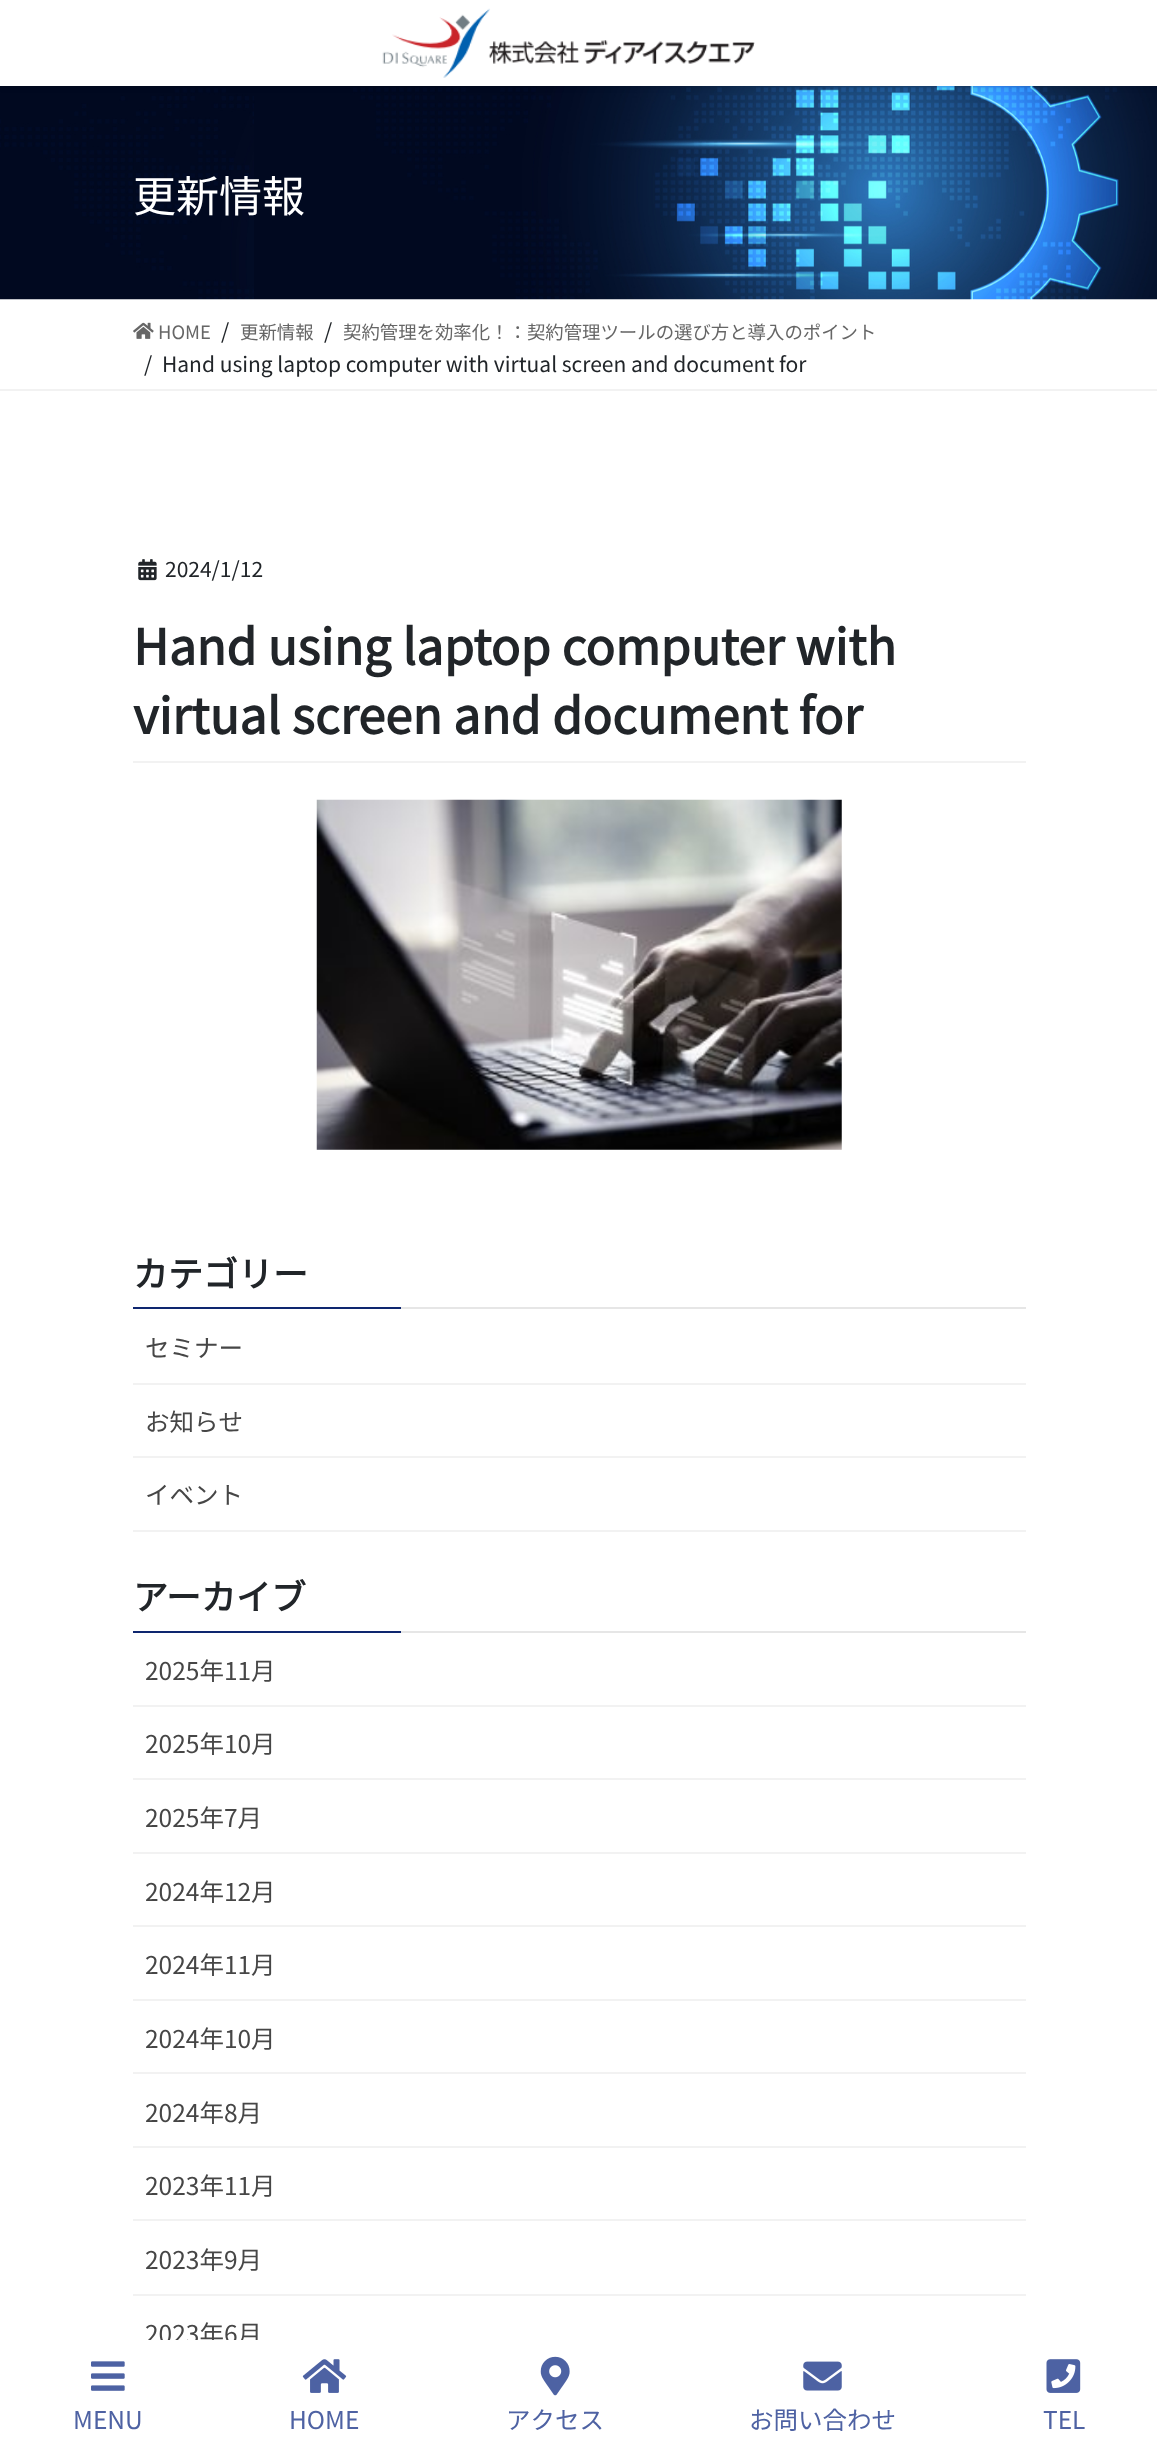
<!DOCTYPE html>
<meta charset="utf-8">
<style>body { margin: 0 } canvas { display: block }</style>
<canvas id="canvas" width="1157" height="2448"></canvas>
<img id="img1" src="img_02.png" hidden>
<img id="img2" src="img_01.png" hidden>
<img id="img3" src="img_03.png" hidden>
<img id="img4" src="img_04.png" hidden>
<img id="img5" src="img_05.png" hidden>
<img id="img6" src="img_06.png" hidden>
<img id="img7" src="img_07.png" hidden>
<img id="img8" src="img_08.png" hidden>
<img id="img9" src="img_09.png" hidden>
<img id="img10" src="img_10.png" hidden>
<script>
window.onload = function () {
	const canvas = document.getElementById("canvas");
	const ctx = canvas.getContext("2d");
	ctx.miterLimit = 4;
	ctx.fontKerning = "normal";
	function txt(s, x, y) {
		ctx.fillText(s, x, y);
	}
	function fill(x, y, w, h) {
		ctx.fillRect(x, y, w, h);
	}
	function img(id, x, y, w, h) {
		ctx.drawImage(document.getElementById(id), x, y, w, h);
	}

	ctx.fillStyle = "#FFFFFF";
	fill(0, 0, 1157, 2448);
	img("img1", 0, 86, 1157, 214);
	ctx.fillStyle = "rgba(0, 0, 0, 0.1)";
	ctx.filter = "blur(2.5px)";
	ctx.beginPath();
	ctx.rect(0, 2, 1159, 86);
	ctx.fill();
	ctx.filter = "none";
	ctx.fillStyle = "#FFFFFF";
	fill(0, 0, 1157, 86);
	img("img2", 382, 8, 373, 70);
	ctx.fillStyle = "#F2F2F2";
	fill(0, 389, 1157, 2);
	img("img3", 133, 322, 21, 17);
	fill(133, 761, 893, 2);
	img("img4", 138, 559, 19, 22);
	img("img5", 316, 799, 526, 351);
	ctx.fillStyle = "#E6E6E6";
	fill(401, 1307, 625, 2);
	ctx.fillStyle = "#0E266F";
	fill(133, 1307, 268, 2);
	ctx.fillStyle = "#F2F2F2";
	fill(133, 1383, 893, 2);
	fill(133, 1456, 893, 2);
	fill(133, 1530, 893, 2);
	ctx.fillStyle = "#E6E6E6";
	fill(401, 1631, 625, 2);
	ctx.fillStyle = "#0E266F";
	fill(133, 1631, 268, 2);
	ctx.fillStyle = "#F2F2F2";
	fill(133, 1705, 893, 2);
	fill(133, 1778, 893, 2);
	fill(133, 1852, 893, 2);
	fill(133, 1925, 893, 2);
	fill(133, 1999, 893, 2);
	fill(133, 2072, 893, 2);
	fill(133, 2146, 893, 2);
	fill(133, 2219, 893, 2);
	fill(133, 2294, 893, 2);
	img("img6", 91, 2361, 34, 30);
	img("img7", 302, 2359, 45, 34);
	img("img8", 540, 2356, 30, 40);
	img("img9", 803, 2361, 39, 30);
	img("img10", 1046, 2359, 35, 34);
	ctx.font = "100 43px Noto Sans JP";
	ctx.fillStyle = "#FFFFFF";
	txt("更新情報", 133, 212);
	ctx.font = "100 18.4px Noto Sans JP";
	ctx.fillStyle = "#666666";
	txt("HOME", 158, 339);
	ctx.font = "100 21px Noto Sans JP";
	ctx.fillStyle = "#212529";
	txt("/", 221, 339);
	ctx.font = "100 18.4px Noto Sans JP";
	ctx.fillStyle = "#666666";
	txt("更新情報", 240, 339);
	ctx.font = "100 21px Noto Sans JP";
	ctx.fillStyle = "#212529";
	txt("/", 324, 339);
	ctx.font = "100 18.4px Noto Sans JP";
	ctx.fillStyle = "#666666";
	txt("契約管理を効率化！：契約管理ツールの選び方と導入のポイント", 343, 339);
	ctx.font = "100 21px Noto Sans JP";
	ctx.fillStyle = "#212529";
	txt("/", 144, 372);
	txt("Hand using laptop computer with virtual screen and document for", 162, 372);
	txt("2024/1/12", 165, 577);
	ctx.font = "bold 49px Noto Sans JP";
	txt("Hand using laptop computer with", 133, 665);
	txt("virtual screen and document for", 133, 734);
	ctx.font = "bold 35px Noto Sans JP";
	txt("カテゴリー", 133, 1287);
	ctx.font = "100 24.5px Noto Sans JP";
	ctx.fillStyle = "#464646";
	txt("セミナー", 145, 1357);
	txt("お知らせ", 145, 1431);
	txt("イベント", 145, 1504);
	ctx.font = "bold 35px Noto Sans JP";
	ctx.fillStyle = "#212529";
	txt("アーカイブ", 133, 1610);
	ctx.font = "100 24.5px Noto Sans JP";
	ctx.fillStyle = "#464646";
	txt("2025年11月", 145, 1680);
	txt("2025年10月", 145, 1753);
	txt("2025年7月", 145, 1827);
	txt("2024年12月", 145, 1901);
	txt("2024年11月", 145, 1974);
	txt("2024年10月", 145, 2048);
	txt("2024年8月", 145, 2122);
	txt("2023年11月", 145, 2195);
	txt("2023年9月", 145, 2269);
	txt("2023年6月", 145, 2343);
	ctx.fillStyle = "#FFFFFF";
	fill(146, 2340, 112, 5);
	ctx.fillStyle = "#4E62A3";
	txt("MENU", 73, 2429);
	txt("HOME", 289, 2429);
	txt("アクセス", 506, 2429);
	txt("お問い合わせ", 749, 2429);
	txt("TEL", 1043, 2429);
};
</script>
